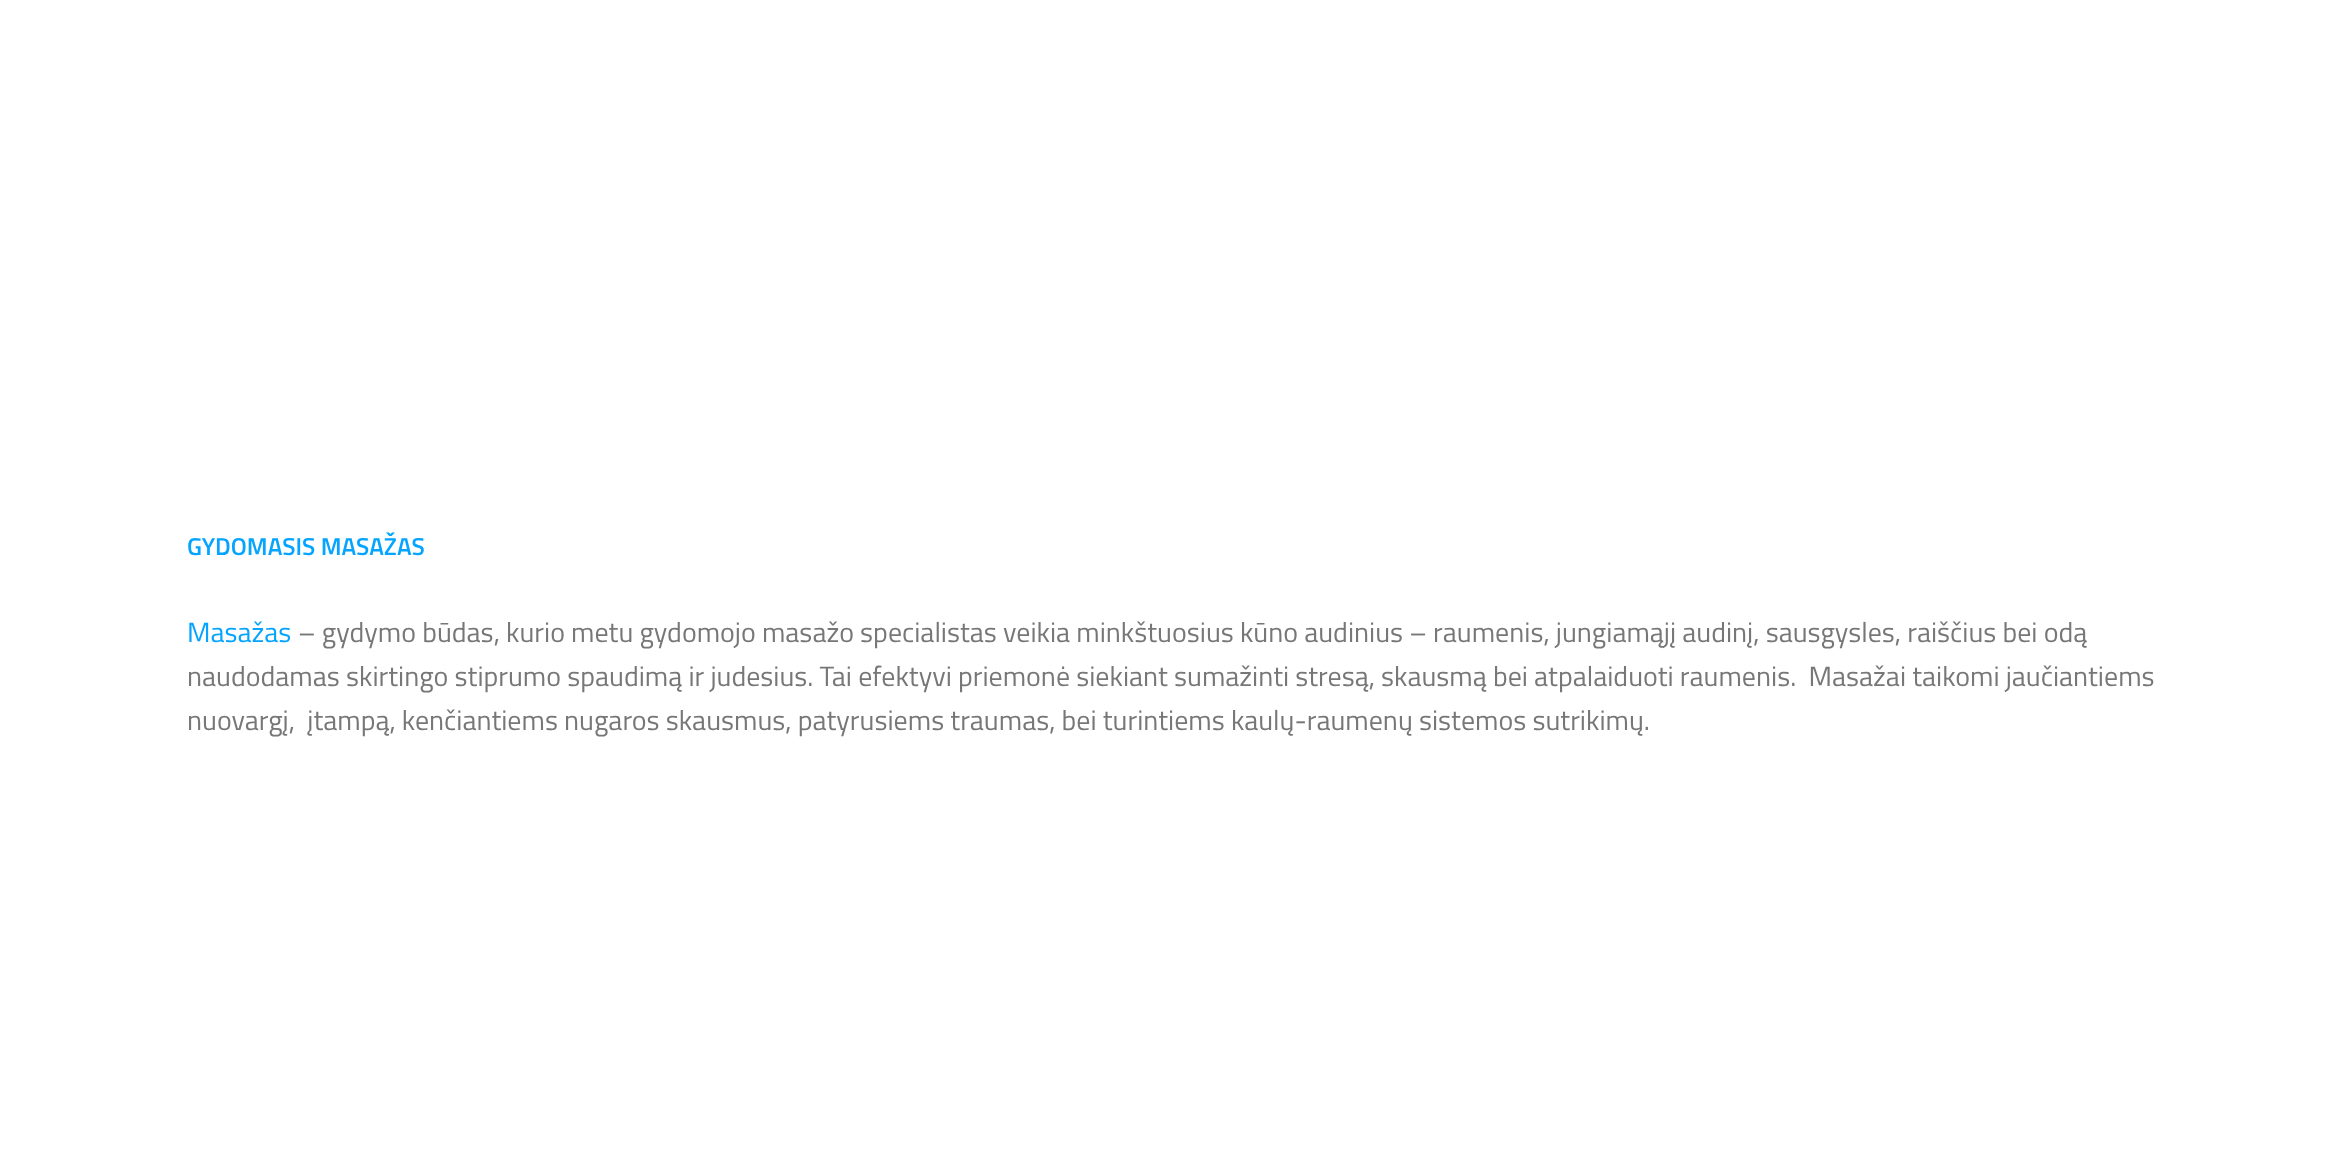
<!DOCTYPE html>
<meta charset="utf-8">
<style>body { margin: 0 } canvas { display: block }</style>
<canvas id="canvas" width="2352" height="1171"></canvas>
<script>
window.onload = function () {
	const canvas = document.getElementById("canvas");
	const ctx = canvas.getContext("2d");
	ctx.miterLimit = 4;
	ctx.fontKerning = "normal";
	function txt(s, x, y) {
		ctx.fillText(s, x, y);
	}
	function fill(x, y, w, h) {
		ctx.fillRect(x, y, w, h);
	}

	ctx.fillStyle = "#FFFFFF";
	fill(0, 0, 2352, 1171);
	ctx.font = "600 24.5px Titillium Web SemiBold";
	ctx.fillStyle = "#05A4FF";
	txt("GYDOMASIS MASAŽAS", 187, 555);
	ctx.font = "28px Titillium Web";
	txt("Masažas", 187, 642);
	ctx.fillStyle = "#777777";
	txt("– gydymo būdas, kurio metu gydomojo masažo specialistas veikia minkštuosius kūno audinius – raumenis, jungiamąjį audinį, sausgysles, raiščius bei odą", 298, 642);
	txt("naudodamas skirtingo stiprumo spaudimą ir judesius. Tai efektyvi priemonė siekiant sumažinti stresą, skausmą bei atpalaiduoti raumenis.  Masažai taikomi jaučiantiems", 187, 686);
	txt("nuovargį,  įtampą, kenčiantiems nugaros skausmus, patyrusiems traumas, bei turintiems kaulų-raumenų sistemos sutrikimų.", 187, 730);
};
</script>
